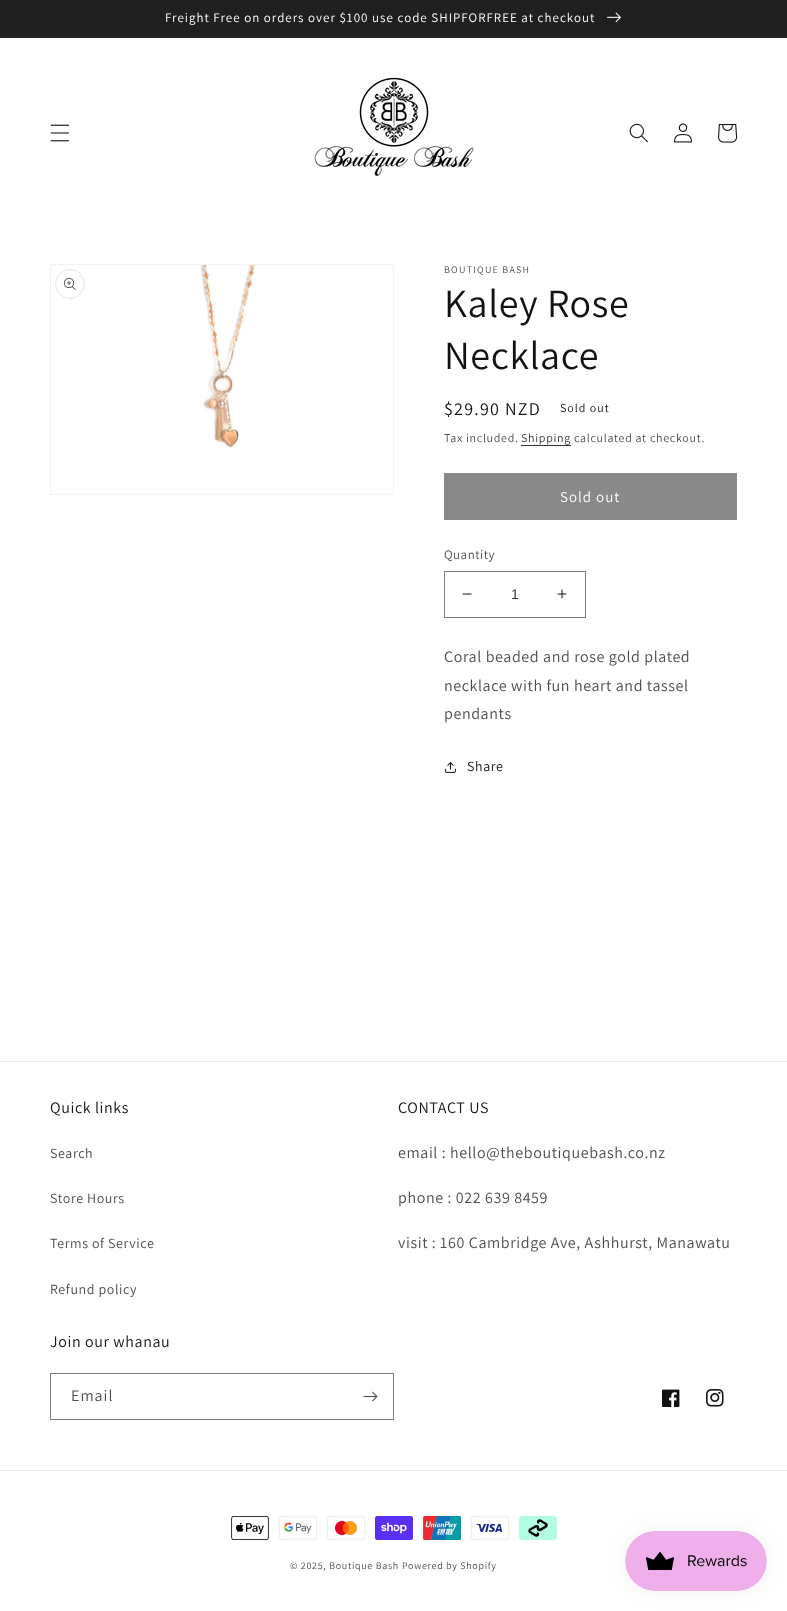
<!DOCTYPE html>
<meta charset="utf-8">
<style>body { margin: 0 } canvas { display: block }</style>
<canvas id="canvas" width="787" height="1611"></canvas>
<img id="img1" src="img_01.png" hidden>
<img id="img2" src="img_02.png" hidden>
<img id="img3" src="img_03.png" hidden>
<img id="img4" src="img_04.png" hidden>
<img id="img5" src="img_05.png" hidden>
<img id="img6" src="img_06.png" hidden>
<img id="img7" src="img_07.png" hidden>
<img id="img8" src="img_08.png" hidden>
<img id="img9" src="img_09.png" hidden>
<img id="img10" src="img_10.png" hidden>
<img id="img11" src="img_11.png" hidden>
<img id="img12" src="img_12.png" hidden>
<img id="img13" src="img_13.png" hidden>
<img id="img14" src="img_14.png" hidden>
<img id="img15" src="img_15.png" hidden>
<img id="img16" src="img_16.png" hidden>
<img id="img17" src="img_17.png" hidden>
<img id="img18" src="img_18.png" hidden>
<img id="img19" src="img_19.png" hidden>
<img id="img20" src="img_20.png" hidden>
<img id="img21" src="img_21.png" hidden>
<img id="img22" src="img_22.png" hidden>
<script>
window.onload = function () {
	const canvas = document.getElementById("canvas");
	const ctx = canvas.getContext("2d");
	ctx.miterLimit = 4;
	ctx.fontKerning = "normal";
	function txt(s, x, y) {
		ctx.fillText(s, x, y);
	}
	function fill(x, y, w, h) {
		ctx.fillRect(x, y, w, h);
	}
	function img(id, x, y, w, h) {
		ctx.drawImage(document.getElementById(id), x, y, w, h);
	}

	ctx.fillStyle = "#FFFFFF";
	fill(0, 0, 787, 1611);
	ctx.fillStyle = "#252525";
	fill(0, 37, 787, 1);
	ctx.fillStyle = "#202020";
	fill(0, 0, 787, 37);
	img("img1", 607, 12, 14, 11);
	img("img2", 50, 124, 20, 18);
	img("img3", 314, 75, 160, 104);
	img("img4", 629, 123, 19, 20);
	img("img5", 674, 123, 18, 20);
	img("img6", 718, 124, 20, 19);
	ctx.strokeStyle = "#F3F3F3";
	ctx.strokeRect(50.5, 264.5, 343, 230);
	img("img7", 200, 265, 57, 185);
	ctx.beginPath();
	ctx.arc(70, 284, 14.5, 0, Math.PI * 2);
	ctx.strokeStyle = "#E7E7E7";
	ctx.stroke();
	img("img8", 64, 278, 12, 12);
	ctx.fillStyle = "#363636";
	fill(521, 445, 50, 1);
	ctx.fillStyle = "#898989";
	fill(444, 473, 293, 47);
	img("img9", 462, 593, 10, 2);
	img("img10", 557, 589, 10, 10);
	ctx.strokeStyle = "#7D7D7D";
	ctx.strokeRect(444.5, 571.5, 141, 46);
	img("img11", 445, 762, 11, 11);
	ctx.fillStyle = "#ECECEC";
	fill(0, 1061, 787, 1);
	ctx.strokeRect(50.5, 1373.5, 343, 46);
	img("img12", 363, 1391, 15, 11);
	img("img13", 662, 1389, 18, 18);
	img("img14", 706, 1389, 18, 18);
	fill(0, 1470, 787, 1);
	img("img15", 231, 1516, 38, 24);
	img("img16", 279, 1516, 38, 24);
	img("img17", 327, 1516, 38, 24);
	img("img18", 375, 1516, 38, 24);
	img("img19", 423, 1516, 38, 24);
	img("img20", 471, 1516, 38, 24);
	img("img21", 519, 1516, 38, 24);
	ctx.fillStyle = "rgba(0, 0, 0, 0.05)";
	ctx.filter = "blur(12.5px)";
	ctx.beginPath();
	ctx.roundRect(625, 1531, 142, 60, 30);
	ctx.fill();
	ctx.filter = "none";
	img("img22", 625, 1531, 142, 60);
	ctx.letterSpacing = "1px";
	ctx.font = "13px Assistant";
	ctx.fillStyle = "#FFFFFF";
	txt("Freight Free on orders over $100 use code SHIPFORFREE at checkout", 165, 22);
	ctx.letterSpacing = "1.25px";
	ctx.font = "10px Assistant";
	ctx.fillStyle = "#4D4D4D";
	txt("BOUTIQUE BASH", 444, 273);
	ctx.letterSpacing = "0.6px";
	ctx.font = "40px Assistant";
	ctx.fillStyle = "#121212";
	txt("Kaley Rose", 444, 317);
	txt("Necklace", 444, 369);
	ctx.letterSpacing = "1.25px";
	ctx.font = "18px Assistant";
	txt("$29.90 NZD", 444, 415);
	ctx.letterSpacing = "1px";
	ctx.font = "12px Assistant";
	txt("Sold out", 560, 412);
	ctx.letterSpacing = "0.7px";
	ctx.fillStyle = "#4D4D4D";
	txt("Tax included.", 444, 442);
	ctx.fillStyle = "#363636";
	txt("Shipping", 521, 442);
	ctx.fillStyle = "#4D4D4D";
	txt("calculated at checkout.", 574, 442);
	ctx.letterSpacing = "1px";
	ctx.font = "15px Assistant";
	ctx.fillStyle = "#FFFFFF";
	txt("Sold out", 560, 502);
	ctx.letterSpacing = "0.5px";
	ctx.font = "13px Assistant";
	ctx.fillStyle = "#4D4D4D";
	txt("Quantity", 444, 559);
	ctx.letterSpacing = "0px";
	ctx.font = "14px Liberation Sans";
	ctx.fillStyle = "#363636";
	txt("1", 511, 599);
	ctx.letterSpacing = "0.6px";
	ctx.font = "16px Assistant";
	ctx.fillStyle = "#4D4D4D";
	txt("Coral beaded and rose gold plated", 444, 662);
	txt("necklace with fun heart and tassel", 444, 691);
	txt("pendants", 444, 719);
	ctx.font = "14px Assistant";
	ctx.fillStyle = "#121212";
	txt("Share", 467, 771);
	ctx.font = "16px Assistant";
	txt("Quick links", 50, 1113);
	ctx.font = "14px Assistant";
	ctx.fillStyle = "#4D4D4D";
	txt("Search", 50, 1158);
	txt("Store Hours", 50, 1203);
	txt("Terms of Service", 50, 1248);
	txt("Refund policy", 50, 1294);
	ctx.font = "16px Assistant";
	ctx.fillStyle = "#121212";
	txt("CONTACT US", 398, 1113);
	ctx.fillStyle = "#4D4D4D";
	txt("email : hello@theboutiquebash.co.nz", 398, 1158);
	txt("phone : 022 639 8459", 398, 1203);
	txt("visit : 160 Cambridge Ave, Ashhurst, Manawatu", 398, 1248);
	ctx.fillStyle = "#121212";
	txt("Join our whanau", 50, 1347);
	ctx.letterSpacing = "1px";
	ctx.fillStyle = "#4D4D4D";
	txt("Email", 71, 1401);
	ctx.letterSpacing = "0.7px";
	ctx.font = "10px Assistant";
	txt("© 2025, Boutique Bash", 290, 1569);
	txt("Powered by Shopify", 402, 1569);
};
</script>
